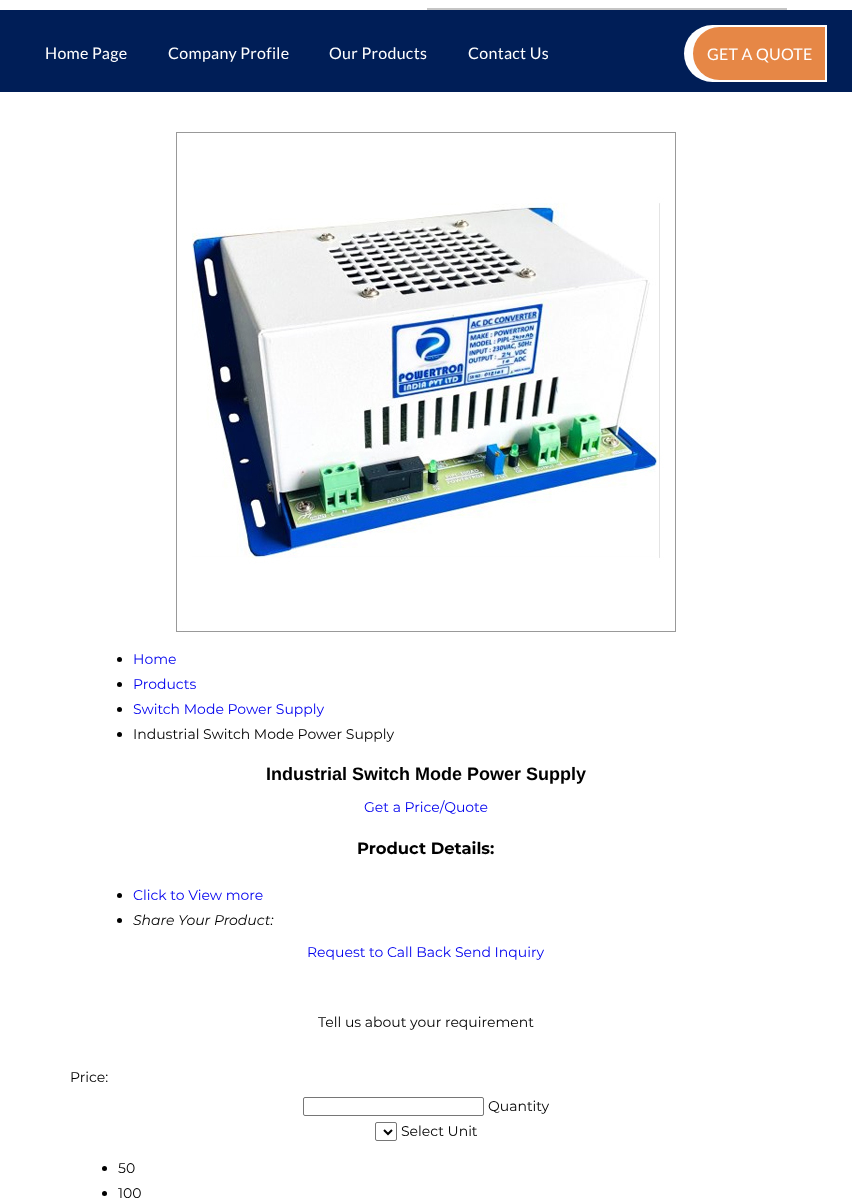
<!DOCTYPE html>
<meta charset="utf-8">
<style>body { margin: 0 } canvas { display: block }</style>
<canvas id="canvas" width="852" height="1203"></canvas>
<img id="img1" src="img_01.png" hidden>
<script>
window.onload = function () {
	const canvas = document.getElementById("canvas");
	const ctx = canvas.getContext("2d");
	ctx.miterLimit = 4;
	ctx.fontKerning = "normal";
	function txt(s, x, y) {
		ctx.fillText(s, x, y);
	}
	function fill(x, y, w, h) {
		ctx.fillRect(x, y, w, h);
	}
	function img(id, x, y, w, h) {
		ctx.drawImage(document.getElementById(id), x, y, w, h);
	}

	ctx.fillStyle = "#FFFFFF";
	fill(0, 0, 852, 1203);
	ctx.fillStyle = "#C5C5C5";
	fill(427, 8, 360, 2);
	ctx.fillStyle = "#001E57";
	fill(0, 10, 852, 82);
	ctx.fillStyle = "#FDFEFF";
	ctx.beginPath();
	ctx.roundRect(684, 25, 143, 57, [28.5, 0, 0, 28.5]);
	ctx.fill();
	ctx.fillStyle = "#E68746";
	ctx.beginPath();
	ctx.roundRect(693, 27, 132, 53, [26.5, 0, 0, 26.5]);
	ctx.fill();
	img("img1", 176, 132, 500, 500);
	ctx.fillStyle = "#000000";
	ctx.beginPath();
	ctx.arc(119.5, 659.5, 2.5, 0, Math.PI * 2);
	ctx.fill();
	ctx.beginPath();
	ctx.arc(119.5, 684.5, 2.5, 0, Math.PI * 2);
	ctx.fill();
	ctx.beginPath();
	ctx.arc(119.5, 709.5, 2.5, 0, Math.PI * 2);
	ctx.fill();
	ctx.beginPath();
	ctx.arc(119.5, 734.5, 2.5, 0, Math.PI * 2);
	ctx.fill();
	ctx.beginPath();
	ctx.arc(119.5, 895.5, 2.5, 0, Math.PI * 2);
	ctx.fill();
	ctx.beginPath();
	ctx.arc(119.5, 920.5, 2.5, 0, Math.PI * 2);
	ctx.fill();
	ctx.beginPath();
	ctx.roundRect(303.5, 1097.5, 180, 18, 1.5);
	ctx.strokeStyle = "#767676";
	ctx.stroke();
	ctx.beginPath();
	ctx.roundRect(375.5, 1122.5, 21, 18, 1.5);
	ctx.stroke();
	ctx.beginPath();
	ctx.moveTo(384, 1130);
	ctx.lineTo(388, 1134);
	ctx.lineTo(392, 1130);
	ctx.strokeStyle = "#000000";
	ctx.lineWidth = 2;
	ctx.stroke();
	ctx.beginPath();
	ctx.arc(104.5, 1168.5, 2.5, 0, Math.PI * 2);
	ctx.fill();
	ctx.beginPath();
	ctx.arc(104.5, 1193.5, 2.5, 0, Math.PI * 2);
	ctx.fill();
	ctx.letterSpacing = "0.3px";
	ctx.font = "16px Lato";
	ctx.fillStyle = "#FFFFFF";
	txt("Home Page", 45, 59);
	txt("Company Profile", 168, 59);
	txt("Our Products", 329, 59);
	txt("Contact Us", 468, 59);
	ctx.letterSpacing = "0.25px";
	txt("GET A QUOTE", 707, 60);
	ctx.letterSpacing = "0px";
	ctx.font = "14px Montserrat";
	ctx.fillStyle = "#0000EE";
	txt("Home", 133, 664);
	txt("Products", 133, 689);
	txt("Switch Mode Power Supply", 133, 714);
	ctx.fillStyle = "#000000";
	txt("Industrial Switch Mode Power Supply", 133, 739);
	ctx.font = "bold 18px Liberation Sans";
	txt("Industrial Switch Mode Power Supply", 266, 780);
	ctx.font = "14px Montserrat";
	ctx.fillStyle = "#0000EE";
	txt("Get a Price/Quote", 364, 812);
	ctx.font = "bold 16.4px Montserrat";
	ctx.fillStyle = "#000000";
	txt("Product Details:", 357, 854);
	ctx.font = "14px Montserrat";
	ctx.fillStyle = "#0000EE";
	txt("Click to View more", 133, 900);
	ctx.font = "italic 14px Montserrat";
	ctx.fillStyle = "#000000";
	txt("Share Your Product:", 133, 925);
	ctx.font = "14px Montserrat";
	ctx.fillStyle = "#0000EE";
	txt("Request to Call Back Send Inquiry", 307, 957);
	ctx.fillStyle = "#000000";
	txt("Tell us about your requirement", 318, 1027);
	txt("Price:", 70, 1082);
	txt("Quantity", 488, 1111);
	txt("Select Unit", 401, 1136);
	txt("50", 118, 1173);
	txt("100", 118, 1198);
};
</script>
